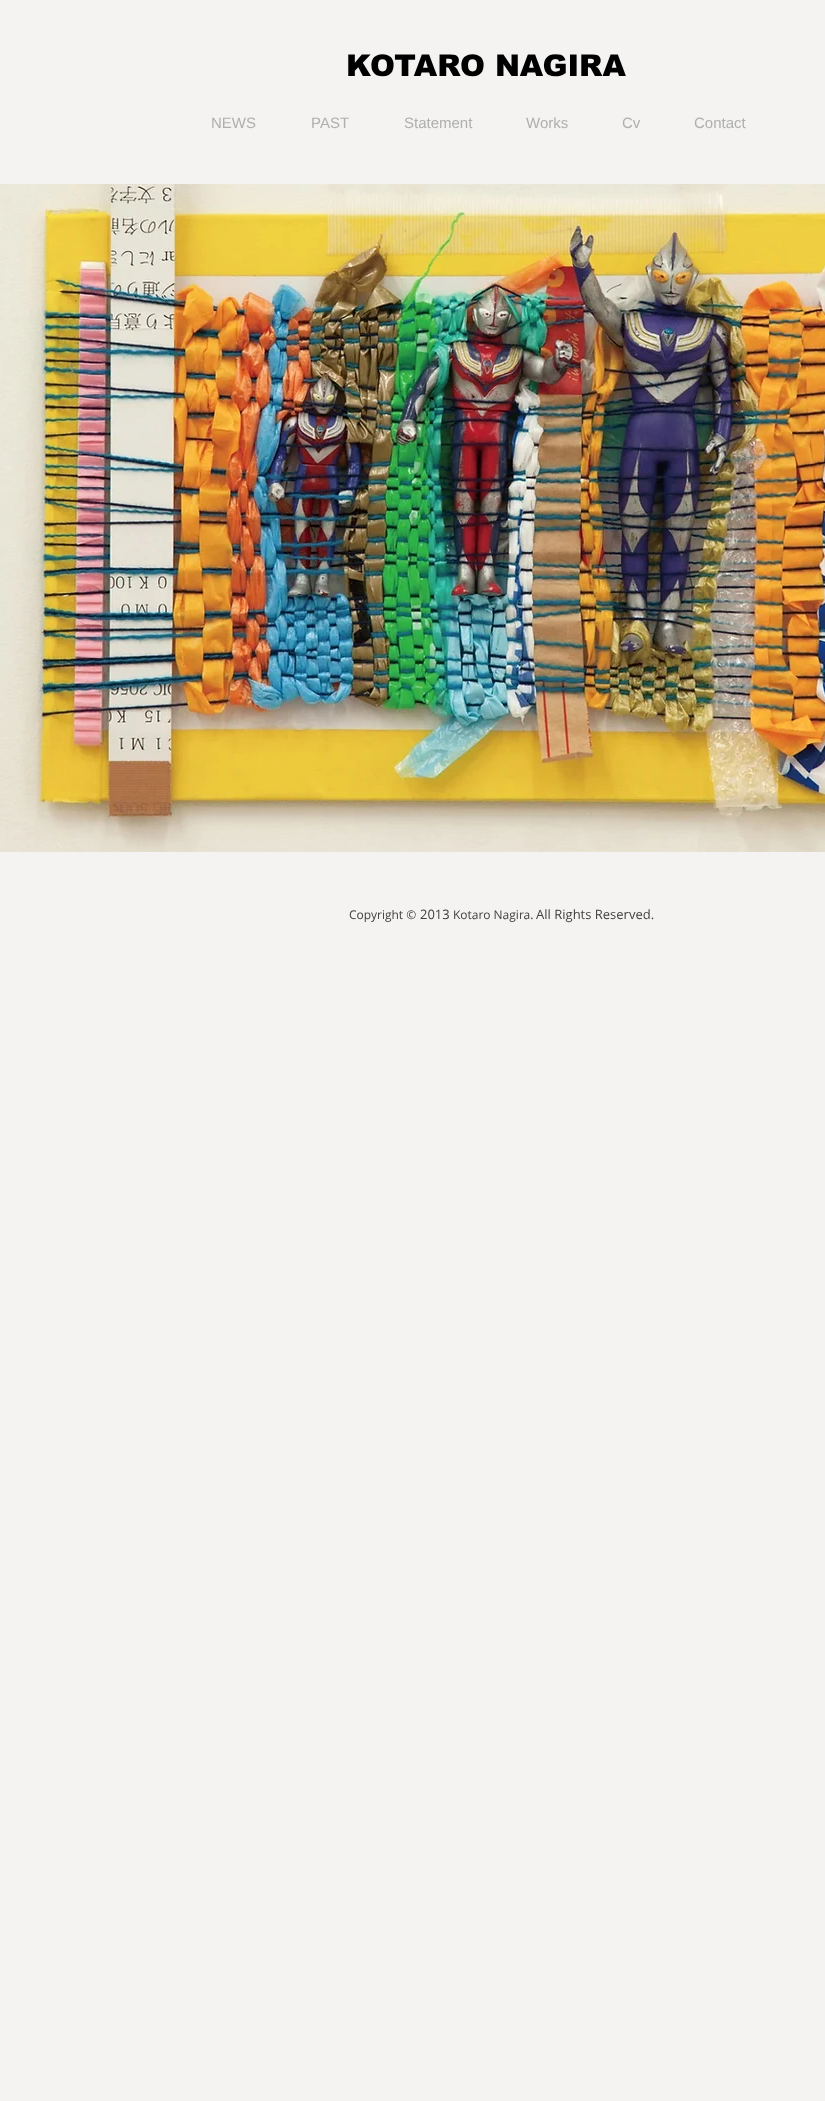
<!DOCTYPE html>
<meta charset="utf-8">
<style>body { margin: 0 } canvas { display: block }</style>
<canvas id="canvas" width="825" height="2101"></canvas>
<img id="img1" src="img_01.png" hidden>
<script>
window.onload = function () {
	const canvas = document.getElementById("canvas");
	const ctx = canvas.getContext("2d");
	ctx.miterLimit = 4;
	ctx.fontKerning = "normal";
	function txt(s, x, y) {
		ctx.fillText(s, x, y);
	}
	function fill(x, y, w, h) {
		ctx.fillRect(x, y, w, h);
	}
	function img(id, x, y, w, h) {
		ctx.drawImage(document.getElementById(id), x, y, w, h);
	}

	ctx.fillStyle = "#F4F3F2";
	fill(0, 0, 825, 2101);
	img("img1", 0, 184, 825, 668);
	ctx.font = "900 30px arial";
	ctx.fillStyle = "#000000";
	txt("KOTARO NAGIRA", 346, 76);
	ctx.font = "15px Liberation Sans";
	ctx.fillStyle = "#AFAFAF";
	txt("NEWS", 211, 128);
	txt("PAST", 311, 128);
	txt("Statement", 404, 128);
	txt("Works", 526, 128);
	txt("Cv", 622, 128);
	txt("Contact", 694, 128);
	ctx.font = "12px Open Sans";
	ctx.fillStyle = "#414141";
	txt("Copyright ©", 349, 919);
	ctx.font = "13px Open Sans";
	txt("2013", 420, 919);
	ctx.font = "12px Open Sans";
	txt("Kotaro Nagira.", 453, 919);
	ctx.font = "13px Open Sans";
	txt("All Rights Reserved.", 536, 919);
};
</script>
